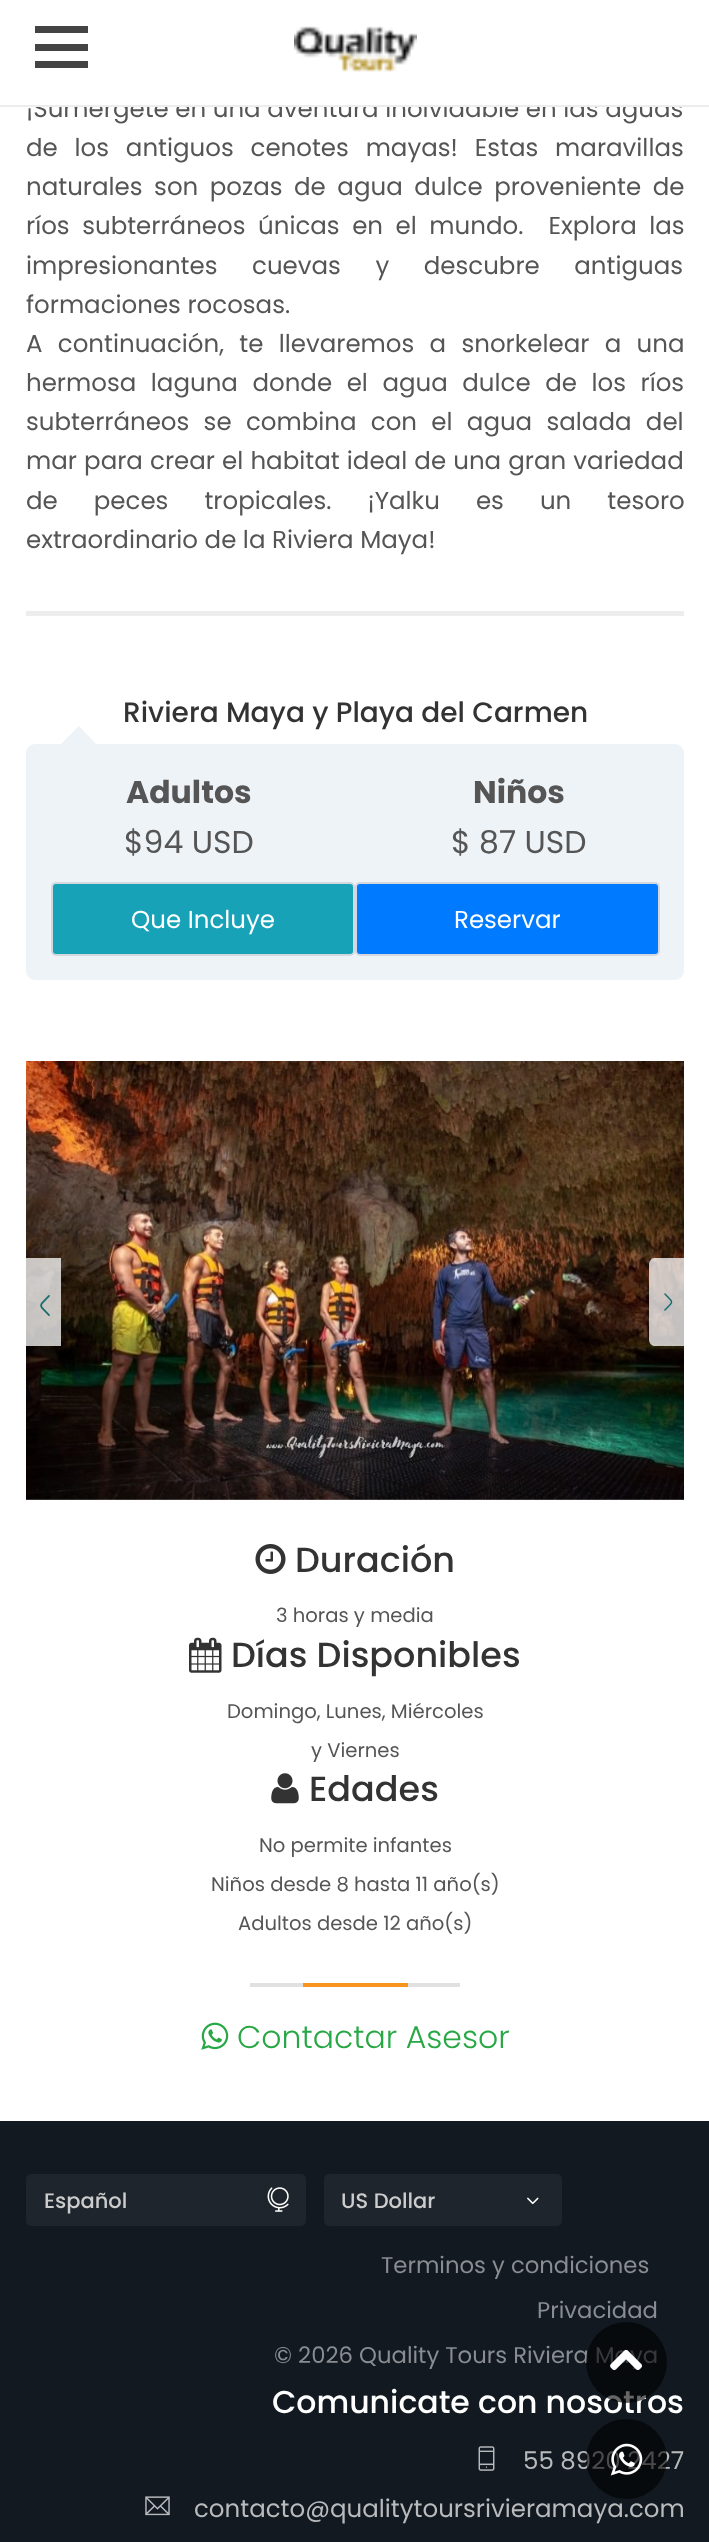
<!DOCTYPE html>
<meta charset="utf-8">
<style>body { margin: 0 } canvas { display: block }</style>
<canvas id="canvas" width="709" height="2542"></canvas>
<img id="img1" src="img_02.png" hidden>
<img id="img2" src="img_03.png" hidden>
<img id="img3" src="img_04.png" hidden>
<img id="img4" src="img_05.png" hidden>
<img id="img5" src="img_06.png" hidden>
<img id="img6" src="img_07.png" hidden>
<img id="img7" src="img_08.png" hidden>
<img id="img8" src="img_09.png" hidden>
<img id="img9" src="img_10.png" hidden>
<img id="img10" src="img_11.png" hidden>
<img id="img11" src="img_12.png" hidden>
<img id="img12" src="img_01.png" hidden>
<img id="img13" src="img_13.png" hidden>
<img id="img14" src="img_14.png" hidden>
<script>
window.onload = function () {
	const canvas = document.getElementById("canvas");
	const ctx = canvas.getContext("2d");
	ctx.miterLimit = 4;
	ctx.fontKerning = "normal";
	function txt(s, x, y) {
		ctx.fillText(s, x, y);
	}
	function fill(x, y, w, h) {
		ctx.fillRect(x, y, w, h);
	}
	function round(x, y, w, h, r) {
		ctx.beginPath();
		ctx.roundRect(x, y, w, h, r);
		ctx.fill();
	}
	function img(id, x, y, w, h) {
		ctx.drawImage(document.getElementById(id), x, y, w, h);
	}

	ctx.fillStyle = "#121921";
	fill(0, 0, 709, 2542);
	ctx.fillStyle = "#FFFFFF";
	fill(0, 107, 709, 2014);
	ctx.fillStyle = "#EDEDED";
	fill(26, 611, 658, 5);
	ctx.fillStyle = "#EEF3F7";
	round(26, 744, 658, 236, 9);
	ctx.beginPath();
	ctx.moveTo(96, 744);
	ctx.lineTo(61, 744);
	ctx.lineTo(79, 726);
	ctx.closePath();
	ctx.fill();
	ctx.fillStyle = "#17A2B8";
	ctx.beginPath();
	ctx.roundRect(52, 883, 302, 72, 4);
	ctx.fill();
	ctx.strokeStyle = "#D2D8DD";
	ctx.lineWidth = 2;
	ctx.stroke();
	ctx.fillStyle = "#007BFF";
	ctx.beginPath();
	ctx.roundRect(356, 883, 303, 72, 4);
	ctx.fill();
	ctx.stroke();
	img("img1", 26, 1061, 658, 439);
	ctx.save();
	ctx.beginPath();
	ctx.rect(26, 1258, 35, 88);
	ctx.clip();
	ctx.fillStyle = "rgba(255, 255, 255, 0.75)";
	ctx.beginPath();
	ctx.moveTo(74, 1258);
	ctx.lineTo(26, 1258);
	ctx.lineTo(26, 1346);
	ctx.lineTo(74, 1346);
	ctx.bezierCurveTo(76, 1346, 79, 1343, 79, 1340);
	ctx.lineTo(79, 1264);
	ctx.bezierCurveTo(79, 1261, 76, 1258, 74, 1258);
	ctx.closePath();
	ctx.fill();
	ctx.restore();
	img("img2", 40, 1295, 10, 21);
	ctx.save();
	ctx.beginPath();
	ctx.rect(649, 1258, 35, 88);
	ctx.clip();
	ctx.fillStyle = "rgba(255, 255, 255, 0.75)";
	ctx.beginPath();
	ctx.moveTo(654, 1258);
	ctx.lineTo(702, 1258);
	ctx.lineTo(702, 1346);
	ctx.lineTo(654, 1346);
	ctx.bezierCurveTo(652, 1346, 649, 1343, 649, 1340);
	ctx.lineTo(649, 1264);
	ctx.bezierCurveTo(649, 1261, 652, 1258, 654, 1258);
	ctx.closePath();
	ctx.fill();
	ctx.restore();
	img("img3", 664, 1293, 9, 18);
	img("img4", 255, 1544, 31, 30);
	img("img5", 189, 1637, 33, 36);
	img("img6", 271, 1773, 28, 31);
	ctx.fillStyle = "#E1E1E1";
	fill(250, 1983, 210, 4);
	ctx.fillStyle = "#F7941D";
	fill(303, 1983, 105, 4);
	img("img7", 201, 2022, 28, 28);
	ctx.fillStyle = "#1E252C";
	round(26, 2174, 280, 52, 5);
	img("img8", 267, 2187, 22, 25);
	round(324, 2174, 238, 52, 5);
	img("img9", 527, 2197, 12, 8);
	img("img10", 478, 2446, 17, 25);
	img("img11", 145, 2496, 25, 20);
	ctx.font = "24.5px Poppins";
	ctx.fillStyle = "#555555";
	txt("¡Sumérgete en una aventura inolvidable en las aguas", 26, 117);
	ctx.fillStyle = "#FFFFFF";
	fill(0, 0, 709, 105);
	ctx.fillStyle = "#444444";
	fill(35, 61, 53, 7);
	fill(35, 26, 53, 7);
	fill(35, 44, 53, 7);
	img("img12", 294, 26, 123, 46);
	ctx.fillStyle = "#EDEDED";
	fill(0, 105, 709, 2);
	ctx.wordSpacing = "10.25px";
	ctx.fillStyle = "#555555";
	txt("de los antiguos cenotes mayas! Estas maravillas", 26, 156);
	ctx.wordSpacing = "5px";
	txt("naturales son pozas de agua dulce proveniente de", 26, 195);
	ctx.wordSpacing = "6px";
	txt("ríos subterráneos únicas en el mundo.  Explora las", 26, 234);
	ctx.wordSpacing = "28px";
	txt("impresionantes cuevas y descubre antiguas", 26, 274);
	ctx.wordSpacing = "0px";
	txt("formaciones rocosas.", 26, 313);
	ctx.wordSpacing = "8.75px";
	txt("A continuación, te llevaremos a snorkelear a una", 26, 352);
	ctx.wordSpacing = "8px";
	txt("hermosa laguna donde el agua dulce de los ríos", 26, 391);
	ctx.wordSpacing = "7.75px";
	txt("subterráneos se combina con el agua salada del", 26, 430);
	ctx.wordSpacing = "0.6px";
	txt("mar para crear el habitat ideal de una gran variedad", 26, 469);
	ctx.wordSpacing = "29.5px";
	txt("de peces tropicales. ¡Yalku es un tesoro", 26, 509);
	ctx.wordSpacing = "0px";
	txt("extraordinario de la Riviera Maya!", 26, 548);
	ctx.font = "500 28px Poppins";
	ctx.fillStyle = "#333333";
	txt("Riviera Maya y Playa del Carmen", 123, 722);
	ctx.font = "bold 31.5px Poppins";
	ctx.fillStyle = "#555555";
	txt("Adultos", 126, 803);
	ctx.font = "31.5px Poppins";
	txt("$94 USD", 124, 853);
	ctx.font = "bold 31.5px Poppins";
	txt("Niños", 473, 803);
	ctx.font = "31.5px Poppins";
	txt("$ 87 USD", 451, 853);
	ctx.font = "24.5px Poppins";
	ctx.fillStyle = "#FFFFFF";
	txt("Que Incluye", 131, 928);
	txt("Reservar", 454, 928);
	ctx.font = "500 35px Poppins";
	ctx.fillStyle = "#333333";
	txt("Duración", 295, 1572);
	ctx.font = "19.6px Poppins";
	ctx.fillStyle = "#555555";
	txt("3 horas y media", 276, 1622);
	ctx.font = "500 35px Poppins";
	ctx.fillStyle = "#333333";
	txt("Días Disponibles", 231, 1667);
	ctx.font = "19.6px Poppins";
	ctx.fillStyle = "#555555";
	txt("Domingo, Lunes, Miércoles", 227, 1718);
	txt("y Viernes", 311, 1757);
	ctx.font = "500 35px Poppins";
	ctx.fillStyle = "#333333";
	txt("Edades", 309, 1801);
	ctx.font = "19.6px Poppins";
	ctx.fillStyle = "#555555";
	txt("No permite infantes", 259, 1852);
	txt("Niños desde 8 hasta 11 año(s)", 211, 1891);
	txt("Adultos desde 12 año(s)", 238, 1930);
	ctx.font = "300 31.5px Poppins";
	ctx.fillStyle = "#28A745";
	txt("Contactar Asesor", 237, 2048);
	ctx.font = "500 21px Poppins";
	ctx.fillStyle = "#CCCCCC";
	txt("Español", 44, 2208);
	txt("US Dollar", 341, 2208);
	ctx.font = "22.75px Poppins";
	ctx.fillStyle = "#898C90";
	txt("Terminos y condiciones", 381, 2273);
	txt("Privacidad", 537, 2318);
	txt("© 2026 Quality Tours Riviera Maya", 274, 2363);
	ctx.font = "500 31.5px Poppins";
	ctx.fillStyle = "#FFFFFF";
	txt("Comunicate con nosotros", 272, 2413);
	ctx.font = "24.5px Poppins";
	ctx.fillStyle = "#B8BABC";
	txt("55 8920 2427", 523, 2469);
	txt("contacto@qualitytoursrivieramaya.com", 194, 2517);
	ctx.fillStyle = "rgba(0, 0, 0, 0.6)";
	ctx.beginPath();
	ctx.arc(626.5, 2362.5, 40.5, 0, Math.PI * 2);
	ctx.fill();
	img("img13", 610, 2349, 32, 21);
	round(586, 2419, 81, 80, 40);
	img("img14", 610, 2443, 33, 33);
};
</script>
